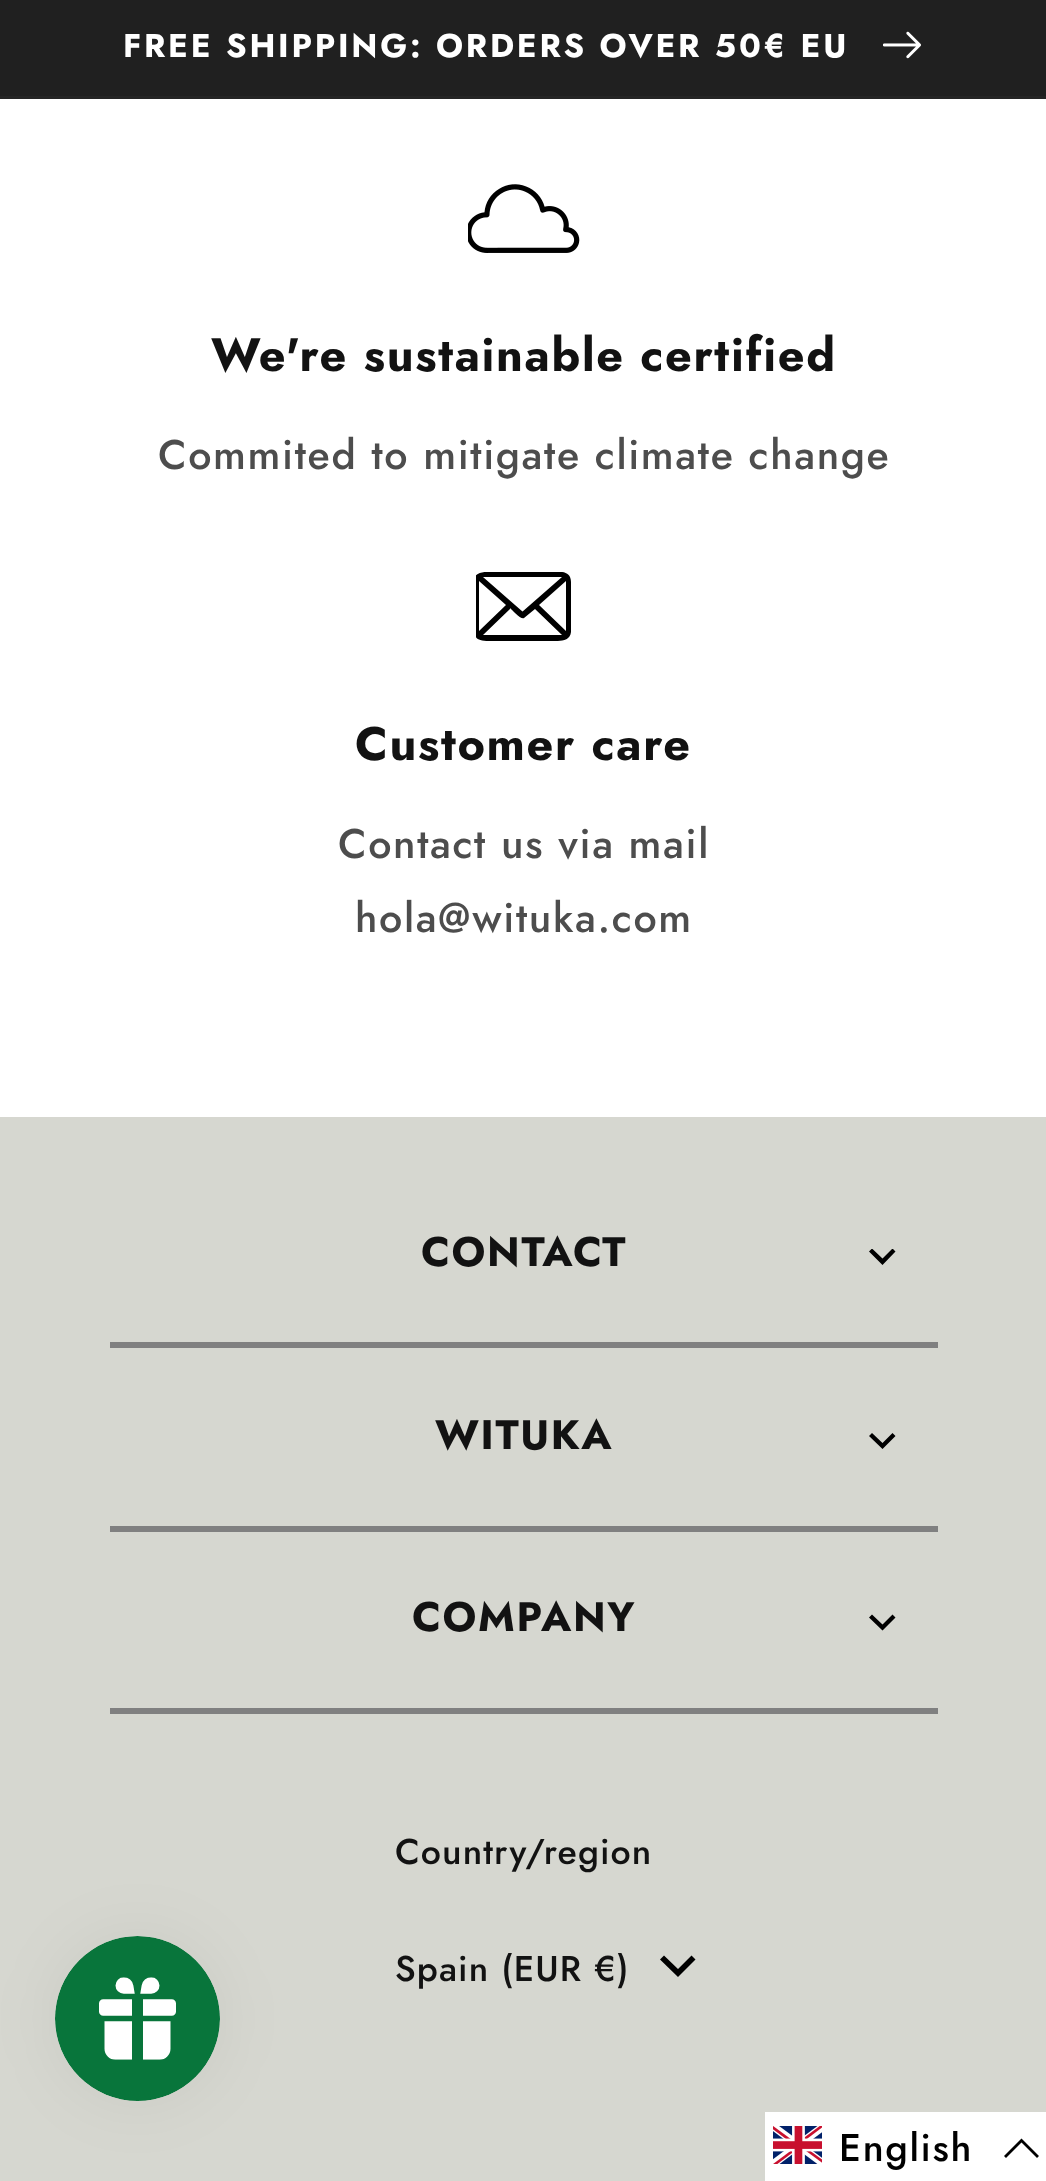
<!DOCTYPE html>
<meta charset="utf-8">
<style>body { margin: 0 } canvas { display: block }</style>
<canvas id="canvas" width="1046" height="2181"></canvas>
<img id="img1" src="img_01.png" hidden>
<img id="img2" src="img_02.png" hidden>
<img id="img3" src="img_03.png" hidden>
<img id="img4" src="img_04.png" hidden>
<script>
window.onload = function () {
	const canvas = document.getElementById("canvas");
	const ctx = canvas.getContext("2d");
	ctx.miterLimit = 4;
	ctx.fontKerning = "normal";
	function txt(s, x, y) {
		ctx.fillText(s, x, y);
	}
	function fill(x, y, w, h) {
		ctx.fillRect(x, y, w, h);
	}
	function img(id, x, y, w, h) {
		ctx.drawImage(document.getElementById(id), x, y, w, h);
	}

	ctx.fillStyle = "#FFFFFF";
	fill(0, 0, 1046, 2181);
	ctx.fillStyle = "#252525";
	fill(0, 96, 1046, 3);
	ctx.fillStyle = "#202020";
	fill(0, 0, 1046, 96);
	img("img1", 883, 31, 38, 28);
	img("img2", 468, 184, 112, 69);
	ctx.save();
	ctx.beginPath();
	ctx.rect(476, 572, 96, 69);
	ctx.clip();
	ctx.fillStyle = "#000000";
	ctx.beginPath();
	ctx.moveTo(522, 572);
	ctx.lineTo(548, 572);
	ctx.bezierCurveTo(557, 572, 571, 569, 571, 582);
	ctx.lineTo(571, 632);
	ctx.bezierCurveTo(570, 642, 559, 641, 552, 641);
	ctx.lineTo(489, 641);
	ctx.bezierCurveTo(474, 641, 474, 636, 474, 625);
	ctx.lineTo(474, 588);
	ctx.bezierCurveTo(474, 585, 473, 581, 474, 578);
	ctx.bezierCurveTo(478, 570, 490, 572, 497, 572);
	ctx.closePath();
	ctx.moveTo(522, 612);
	ctx.lineTo(562, 577);
	ctx.lineTo(483, 577);
	ctx.lineTo(523, 612);
	ctx.closePath();
	ctx.moveTo(510, 609);
	ctx.lineTo(483, 635);
	ctx.lineTo(562, 635);
	ctx.lineTo(535, 609);
	ctx.lineTo(524, 618);
	ctx.bezierCurveTo(521, 620, 512, 610, 510, 608);
	ctx.closePath();
	ctx.moveTo(566, 631);
	ctx.lineTo(566, 581);
	ctx.lineTo(539, 605);
	ctx.closePath();
	ctx.moveTo(506, 605);
	ctx.lineTo(479, 581);
	ctx.lineTo(479, 631);
	ctx.closePath();
	ctx.fill();
	ctx.restore();
	ctx.fillStyle = "#D6D7D0";
	fill(0, 1117, 1046, 1064);
	ctx.fillStyle = "rgba(0, 0, 0, 0.05)";
	ctx.filter = "blur(34.5px)";
	ctx.beginPath();
	ctx.roundRect(55, 1936, 165, 165, 82.5);
	ctx.fill();
	ctx.filter = "none";
	img("img3", 55, 1936, 165, 165);
	ctx.fillStyle = "#808080";
	fill(110, 1342, 828, 6);
	ctx.save();
	ctx.beginPath();
	ctx.rect(869, 1249, 28, 16);
	ctx.clip();
	ctx.fillStyle = "#000000";
	ctx.beginPath();
	ctx.moveTo(892.5, 1248.5);
	ctx.lineTo(882.5, 1258.5);
	ctx.lineTo(872, 1248.5);
	ctx.lineTo(869, 1251.5);
	ctx.lineTo(882.5, 1265);
	ctx.lineTo(895.5, 1251.5);
	ctx.closePath();
	ctx.fill();
	ctx.restore();
	fill(110, 1526, 828, 6);
	ctx.fillStyle = "#000000";
	ctx.beginPath();
	ctx.moveTo(892.5, 1433);
	ctx.lineTo(882.5, 1443);
	ctx.lineTo(872, 1433);
	ctx.lineTo(869, 1436);
	ctx.lineTo(882.5, 1449);
	ctx.lineTo(895.5, 1436);
	ctx.closePath();
	ctx.fill();
	ctx.fillStyle = "#808080";
	fill(110, 1708, 828, 6);
	ctx.fillStyle = "#000000";
	ctx.beginPath();
	ctx.moveTo(892.5, 1614.5);
	ctx.lineTo(882.5, 1624.5);
	ctx.lineTo(872, 1614.5);
	ctx.lineTo(869, 1617.5);
	ctx.lineTo(882.5, 1630.5);
	ctx.lineTo(895.5, 1617.5);
	ctx.closePath();
	ctx.fill();
	ctx.beginPath();
	ctx.moveTo(691.5, 1955.5);
	ctx.lineTo(678, 1969);
	ctx.lineTo(664, 1955.5);
	ctx.lineTo(660, 1959.5);
	ctx.lineTo(678, 1977);
	ctx.lineTo(695.5, 1959.5);
	ctx.closePath();
	ctx.fill();
	ctx.fillStyle = "#FFFFFF";
	fill(765, 2112, 281, 69);
	img("img4", 773, 2126, 49, 38);
	ctx.beginPath();
	ctx.moveTo(1038, 2157);
	ctx.lineTo(1021.5, 2140.5);
	ctx.lineTo(1005, 2157);
	ctx.strokeStyle = "#000000";
	ctx.lineWidth = 2.8;
	ctx.stroke();
	ctx.letterSpacing = "2.75px";
	ctx.font = "bold 33px Jost";
	txt("FREE SHIPPING: ORDERS OVER 50€ EU", 123, 57);
	ctx.letterSpacing = "1.65px";
	ctx.font = "bold 46.75px Jost";
	ctx.fillStyle = "#121212";
	txt("We're sustainable certified", 211, 371);
	ctx.font = "500 41.25px Jost";
	ctx.fillStyle = "#4D4D4D";
	txt("Commited to mitigate climate change", 158, 469);
	ctx.font = "bold 46.75px Jost";
	ctx.fillStyle = "#121212";
	txt("Customer care", 355, 760);
	ctx.font = "500 41.25px Jost";
	ctx.fillStyle = "#4D4D4D";
	txt("Contact us via mail", 338, 858);
	txt("hola@wituka.com", 355, 932);
	ctx.font = "bold 41.25px Jost";
	ctx.fillStyle = "#121212";
	txt("CONTACT", 421, 1266);
	txt("WITUKA", 435, 1449);
	txt("COMPANY", 412, 1631);
	ctx.letterSpacing = "1.1px";
	ctx.font = "500 35.75px Jost";
	txt("Country/region", 395, 1864);
	txt("Spain (EUR €)", 395, 1981);
	ctx.letterSpacing = "1.65px";
	ctx.font = "500 38.5px Jost";
	ctx.fillStyle = "#000000";
	txt("English", 839, 2161);
};
</script>
